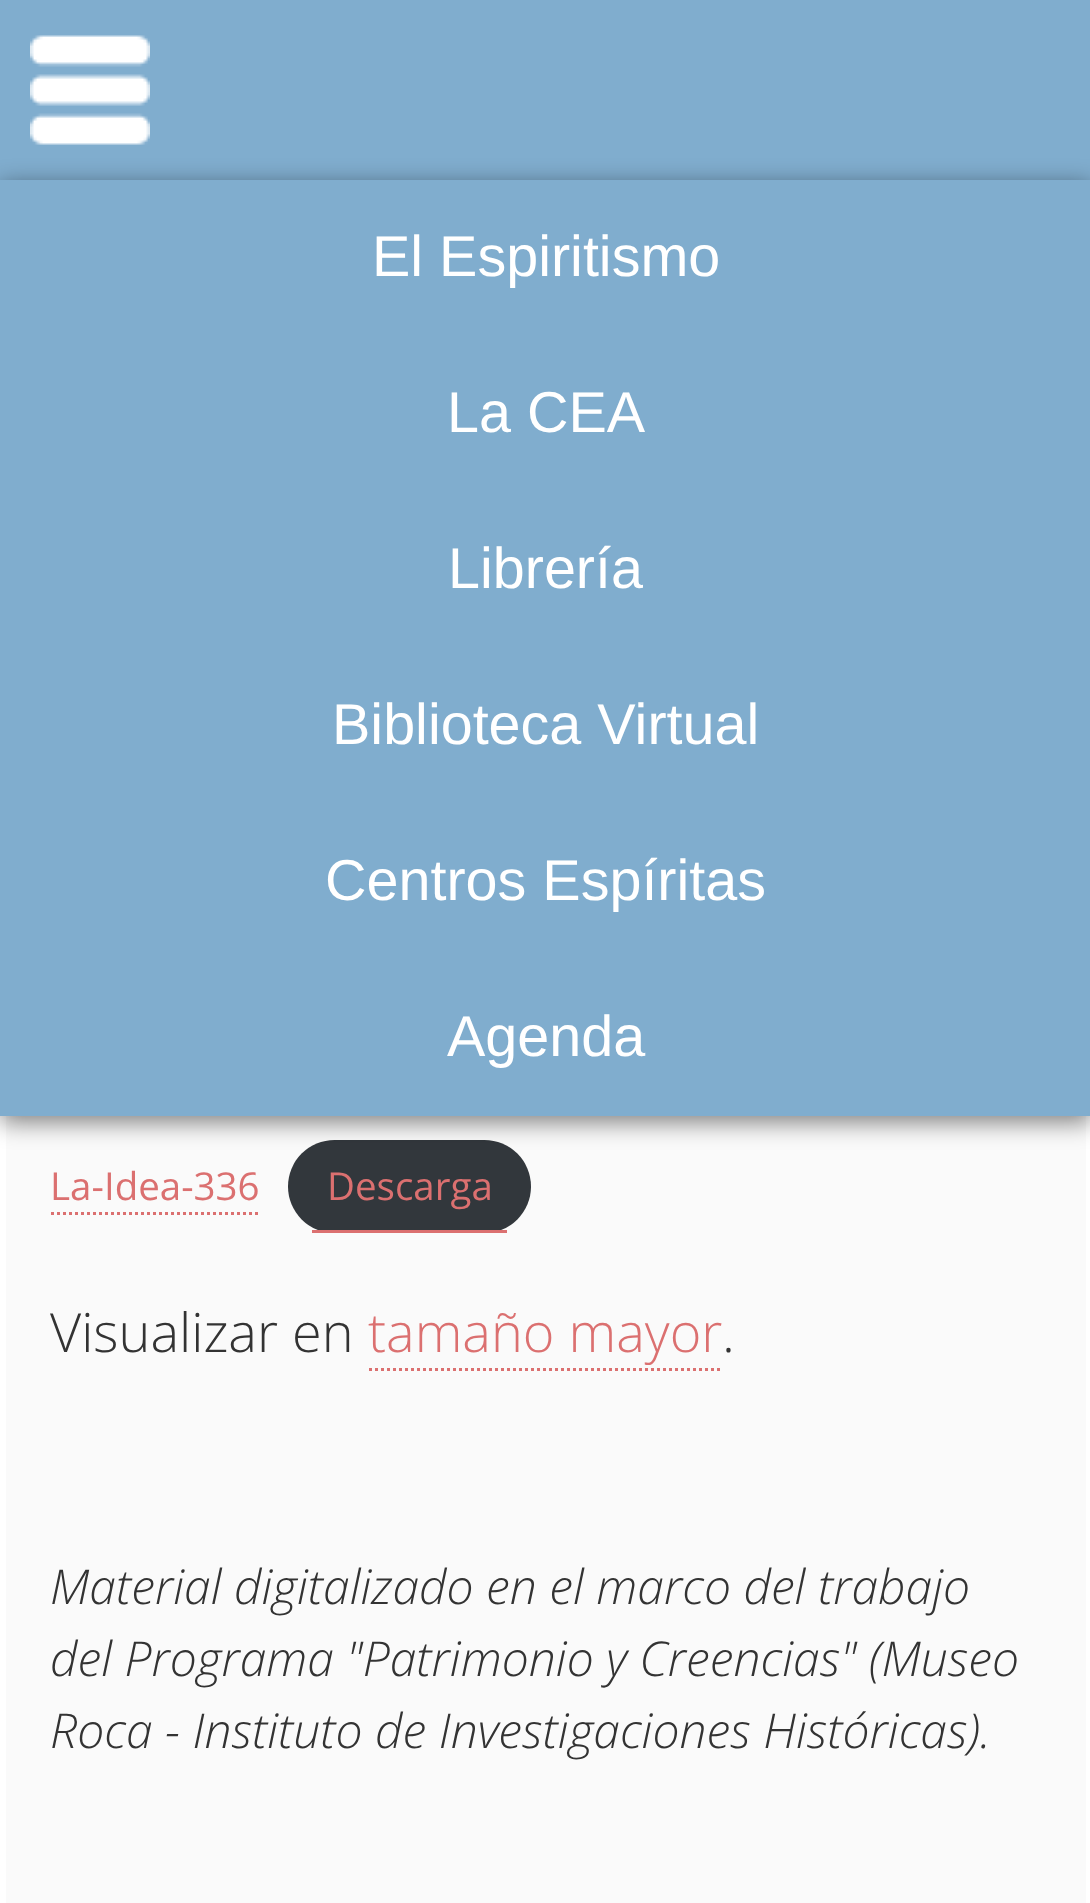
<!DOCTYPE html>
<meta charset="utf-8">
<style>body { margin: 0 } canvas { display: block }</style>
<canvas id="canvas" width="1090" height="1903"></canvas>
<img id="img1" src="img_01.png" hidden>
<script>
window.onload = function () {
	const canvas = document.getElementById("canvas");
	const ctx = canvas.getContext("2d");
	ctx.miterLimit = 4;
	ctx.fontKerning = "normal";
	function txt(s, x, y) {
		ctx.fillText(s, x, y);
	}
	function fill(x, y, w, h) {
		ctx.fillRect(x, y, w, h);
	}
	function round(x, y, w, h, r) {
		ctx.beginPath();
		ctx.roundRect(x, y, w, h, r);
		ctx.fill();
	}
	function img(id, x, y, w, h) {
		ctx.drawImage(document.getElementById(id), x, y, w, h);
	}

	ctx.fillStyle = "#FFFFFF";
	fill(0, 0, 1090, 1903);
	ctx.fillStyle = "#80ADCE";
	fill(0, 0, 1090, 180);
	img("img1", 30, 35, 120, 110);
	ctx.fillStyle = "#FAFAFA";
	fill(6, 1116, 1080, 787);
	ctx.fillStyle = "#32373C";
	round(288, 1140, 243, 93, 46.5);
	ctx.fillStyle = "rgba(0, 0, 0, 0.5)";
	ctx.filter = "blur(12px)";
	ctx.beginPath();
	ctx.rect(0, 186, 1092, 936);
	ctx.fill();
	ctx.filter = "none";
	ctx.fillStyle = "#80ADCE";
	fill(0, 180, 1090, 936);
	ctx.beginPath();
	ctx.moveTo(51, 1213.5);
	ctx.lineTo(261, 1213.5);
	ctx.strokeStyle = "#DB7070";
	ctx.lineWidth = 3;
	ctx.setLineDash([3, 3]);
	ctx.stroke();
	ctx.fillStyle = "#DB7070";
	fill(312, 1230, 195, 3);
	ctx.beginPath();
	ctx.moveTo(369, 1369.5);
	ctx.lineTo(723, 1369.5);
	ctx.stroke();
	ctx.font = "57.5px Liberation Sans";
	ctx.fillStyle = "#FFFFFF";
	txt("El Espiritismo", 372, 276);
	txt("La CEA", 447, 432);
	txt("Librería", 448, 588);
	txt("Biblioteca Virtual", 332, 744);
	txt("Centros Espíritas", 325, 900);
	txt("Agenda", 447, 1056);
	ctx.font = "38.5px Open Sans";
	ctx.fillStyle = "#DB7070";
	txt("La-Idea-336", 50, 1200);
	txt("Descarga", 327, 1200);
	ctx.font = "300 54px Open Sans";
	ctx.fillStyle = "#333333";
	txt("Visualizar en", 50, 1352);
	ctx.fillStyle = "#DB7070";
	txt("tamaño mayor", 368, 1352);
	ctx.fillStyle = "#333333";
	txt(".", 722, 1352);
	ctx.font = "italic 300 48px Open Sans";
	txt("Material digitalizado en el marco del trabajo", 50, 1604);
	txt("del Programa \"Patrimonio y Creencias\" (Museo", 50, 1676);
	txt("Roca - Instituto de Investigaciones Históricas).", 50, 1748);
};
</script>
